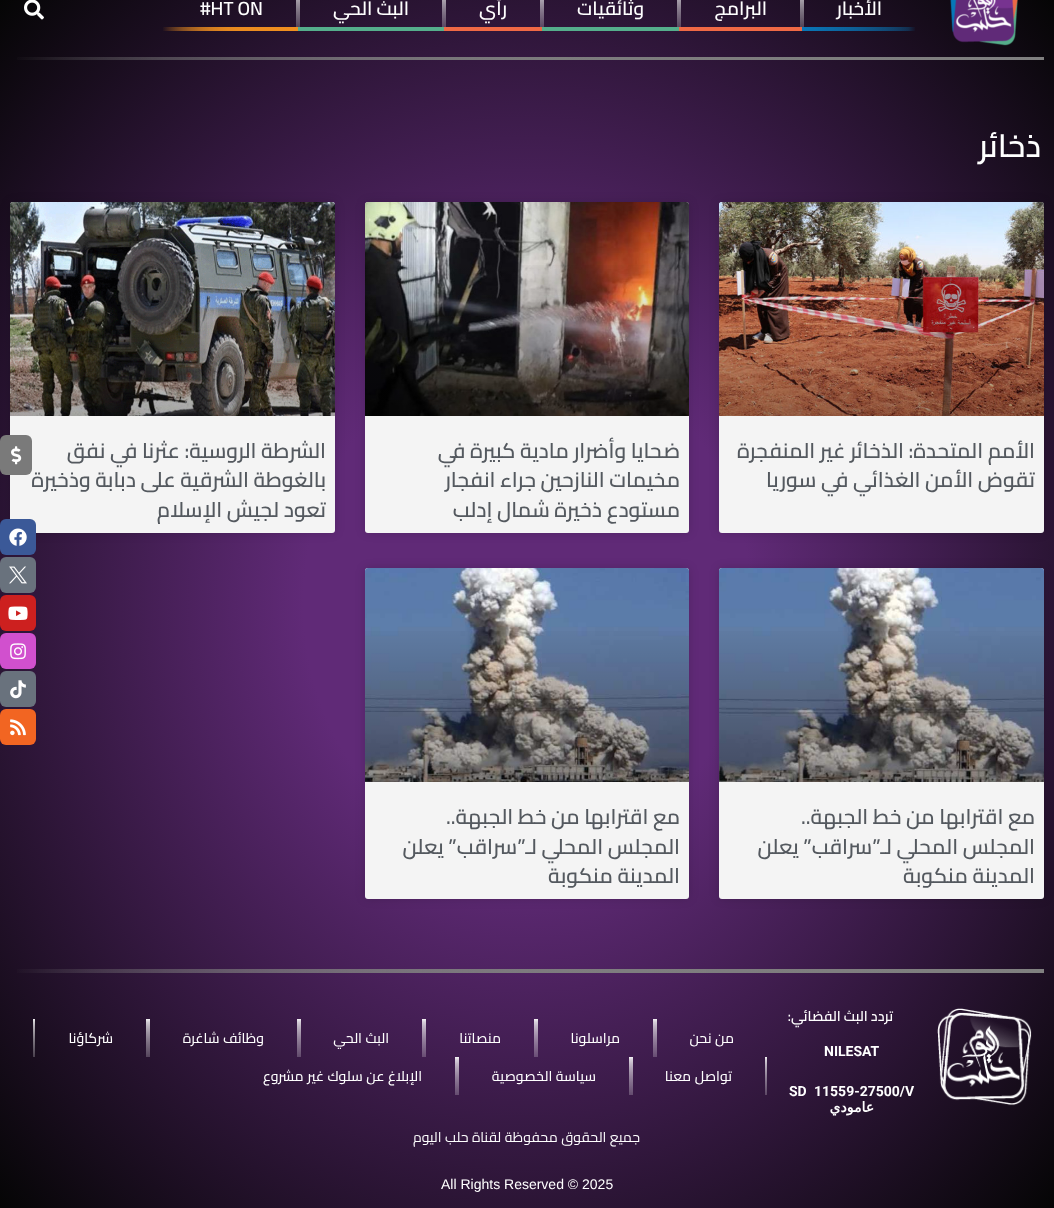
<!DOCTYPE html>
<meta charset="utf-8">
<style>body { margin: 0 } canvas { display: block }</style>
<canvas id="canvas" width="1054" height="1208"></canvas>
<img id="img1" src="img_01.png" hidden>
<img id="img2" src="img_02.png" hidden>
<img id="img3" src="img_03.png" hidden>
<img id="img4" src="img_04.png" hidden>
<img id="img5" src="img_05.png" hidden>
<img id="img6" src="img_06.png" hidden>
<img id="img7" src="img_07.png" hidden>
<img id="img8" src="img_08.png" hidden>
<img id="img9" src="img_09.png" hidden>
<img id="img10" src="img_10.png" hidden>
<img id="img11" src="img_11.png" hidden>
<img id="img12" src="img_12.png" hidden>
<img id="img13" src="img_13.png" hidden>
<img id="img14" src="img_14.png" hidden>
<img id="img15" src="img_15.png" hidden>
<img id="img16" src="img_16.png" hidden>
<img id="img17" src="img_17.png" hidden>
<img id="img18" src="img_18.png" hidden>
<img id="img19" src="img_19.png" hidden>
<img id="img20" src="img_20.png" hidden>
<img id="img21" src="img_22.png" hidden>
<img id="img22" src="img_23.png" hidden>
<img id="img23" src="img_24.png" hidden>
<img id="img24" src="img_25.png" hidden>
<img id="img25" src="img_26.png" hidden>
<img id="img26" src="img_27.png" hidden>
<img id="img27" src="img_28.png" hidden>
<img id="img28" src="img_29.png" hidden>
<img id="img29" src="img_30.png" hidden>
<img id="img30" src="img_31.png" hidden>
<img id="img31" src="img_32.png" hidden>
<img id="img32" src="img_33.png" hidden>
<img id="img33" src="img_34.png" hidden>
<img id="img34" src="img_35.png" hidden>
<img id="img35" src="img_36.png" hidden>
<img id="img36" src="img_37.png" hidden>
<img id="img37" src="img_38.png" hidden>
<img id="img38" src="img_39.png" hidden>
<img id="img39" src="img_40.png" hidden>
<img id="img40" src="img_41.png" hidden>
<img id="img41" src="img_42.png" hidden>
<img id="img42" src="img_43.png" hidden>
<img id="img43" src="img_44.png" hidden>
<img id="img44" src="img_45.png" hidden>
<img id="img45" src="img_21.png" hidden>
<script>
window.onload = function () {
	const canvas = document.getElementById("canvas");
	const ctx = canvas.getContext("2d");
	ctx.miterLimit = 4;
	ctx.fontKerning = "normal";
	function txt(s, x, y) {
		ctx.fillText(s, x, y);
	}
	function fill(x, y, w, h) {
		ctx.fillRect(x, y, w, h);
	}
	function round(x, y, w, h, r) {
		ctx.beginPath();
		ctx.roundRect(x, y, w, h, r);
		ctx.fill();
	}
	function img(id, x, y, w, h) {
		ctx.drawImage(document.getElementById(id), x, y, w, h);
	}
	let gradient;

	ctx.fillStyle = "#FFFFFF";
	fill(0, 0, 1054, 1208);
	gradient = ctx.createRadialGradient(527, 526.91, 0, 527, 526.91, 745);
	gradient.addColorStop(0.3, "#602A77");
	gradient.addColorStop(1, "#050505");
	ctx.fillStyle = gradient;
	ctx.beginPath();
	ctx.rect(0, 0, 1054, 1208);
	ctx.save();
	ctx.clip();
	ctx.scale(1, 854 / 745);
	ctx.fillRect(0, 0, 1054, 1054);
	ctx.restore();
	img("img1", 17, 57, 1027, 3);
	img("img2", 950, 0, 68, 46);
	img("img3", 802, 27, 113, 4);
	img("img4", 802, 0, 2, 27);
	ctx.fillStyle = "#EF6945";
	fill(679, 27, 123, 4);
	img("img5", 800, 0, 2, 27);
	img("img6", 679, 0, 2, 27);
	ctx.fillStyle = "#55AE8C";
	fill(542, 27, 137, 4);
	img("img7", 677, 0, 2, 27);
	img("img8", 542, 0, 2, 27);
	ctx.fillStyle = "#EF6945";
	fill(444, 27, 98, 4);
	img("img9", 540, 0, 2, 27);
	img("img10", 444, 0, 2, 27);
	ctx.fillStyle = "#55AE8C";
	fill(298, 27, 146, 4);
	img("img11", 442, 0, 2, 27);
	img("img12", 298, 0, 2, 27);
	img("img13", 163, 27, 135, 4);
	img("img14", 296, 0, 2, 27);
	img("img15", 24, 0, 20, 20);
	ctx.fillStyle = "rgba(0, 0, 0, 0.15)";
	ctx.filter = "blur(5px)";
	ctx.beginPath();
	ctx.roundRect(719, 202, 325, 331, 3);
	ctx.fill();
	ctx.filter = "none";
	ctx.fillStyle = "#F4F4F4";
	round(719, 202, 325, 331, 3);
	img("img16", 719, 202, 325, 214);
	gradient = ctx.createLinearGradient(882, 416, 882, 202);
	gradient.addColorStop(0, "rgba(0, 0, 0, 0.35)");
	gradient.addColorStop(0.75, "rgba(0, 0, 0, 0)");
	ctx.fillStyle = gradient;
	fill(719, 265, 325, 151);
	ctx.fillStyle = "rgba(0, 0, 0, 0.15)";
	ctx.filter = "blur(5px)";
	ctx.beginPath();
	ctx.roundRect(365, 202, 324, 331, 3);
	ctx.fill();
	ctx.filter = "none";
	ctx.fillStyle = "#F4F4F4";
	round(365, 202, 324, 331, 3);
	img("img17", 365, 202, 324, 214);
	gradient = ctx.createLinearGradient(527, 416, 527, 202);
	gradient.addColorStop(0, "rgba(0, 0, 0, 0.35)");
	gradient.addColorStop(0.75, "rgba(0, 0, 0, 0)");
	ctx.fillStyle = gradient;
	fill(365, 265, 324, 151);
	ctx.fillStyle = "rgba(0, 0, 0, 0.15)";
	ctx.filter = "blur(5px)";
	ctx.beginPath();
	ctx.roundRect(10, 202, 325, 331, 3);
	ctx.fill();
	ctx.filter = "none";
	ctx.fillStyle = "#F4F4F4";
	round(10, 202, 325, 331, 3);
	img("img18", 10, 202, 325, 214);
	gradient = ctx.createLinearGradient(173, 416, 173, 202);
	gradient.addColorStop(0, "rgba(0, 0, 0, 0.35)");
	gradient.addColorStop(0.75, "rgba(0, 0, 0, 0)");
	ctx.fillStyle = gradient;
	fill(10, 265, 325, 151);
	ctx.fillStyle = "rgba(0, 0, 0, 0.15)";
	ctx.filter = "blur(5px)";
	ctx.beginPath();
	ctx.roundRect(719, 568, 325, 331, 3);
	ctx.fill();
	ctx.filter = "none";
	ctx.fillStyle = "#F4F4F4";
	round(719, 568, 325, 331, 3);
	img("img19", 719, 568, 325, 214);
	gradient = ctx.createLinearGradient(882, 782, 882, 568);
	gradient.addColorStop(0, "rgba(0, 0, 0, 0.35)");
	gradient.addColorStop(0.75, "rgba(0, 0, 0, 0)");
	ctx.fillStyle = gradient;
	fill(719, 631, 325, 151);
	ctx.fillStyle = "rgba(0, 0, 0, 0.15)";
	ctx.filter = "blur(5px)";
	ctx.beginPath();
	ctx.roundRect(365, 568, 324, 331, 3);
	ctx.fill();
	ctx.filter = "none";
	ctx.fillStyle = "#F4F4F4";
	round(365, 568, 324, 331, 3);
	img("img20", 365, 568, 324, 214);
	gradient = ctx.createLinearGradient(527, 782, 527, 568);
	gradient.addColorStop(0, "rgba(0, 0, 0, 0.35)");
	gradient.addColorStop(0.75, "rgba(0, 0, 0, 0)");
	ctx.fillStyle = gradient;
	fill(365, 631, 324, 151);
	ctx.fillStyle = "#3B5998";
	round(0, 519, 36, 36, 6);
	img("img21", 9, 528, 18, 18);
	ctx.fillStyle = "#69727D";
	round(0, 557, 36, 36, 6);
	img("img22", 9, 566, 18, 18);
	ctx.fillStyle = "#CD201F";
	round(0, 595, 36, 36, 6);
	img("img23", 8, 606, 20, 14);
	ctx.fillStyle = "#D150CE";
	round(0, 633, 36, 36, 6);
	img("img24", 10, 643, 16, 17);
	ctx.fillStyle = "#69727D";
	round(0, 671, 36, 36, 6);
	img("img25", 10, 680, 16, 19);
	ctx.fillStyle = "#F26522";
	round(0, 709, 36, 36, 6);
	img("img26", 10, 719, 16, 17);
	img("img27", 17, 969, 1027, 4);
	img("img28", 937, 1008, 95, 98);
	img("img29", 655, 1019, 2, 38);
	img("img30", 653, 1019, 2, 38);
	img("img31", 536, 1019, 2, 38);
	img("img32", 534, 1019, 2, 38);
	img("img33", 424, 1019, 2, 38);
	img("img34", 422, 1019, 2, 38);
	img("img35", 299, 1019, 2, 38);
	img("img36", 297, 1019, 2, 38);
	img("img37", 148, 1019, 2, 38);
	img("img38", 146, 1019, 2, 38);
	img("img39", 33, 1019, 2, 38);
	img("img40", 765, 1057, 2, 38);
	img("img41", 631, 1057, 2, 38);
	img("img42", 629, 1057, 2, 38);
	img("img43", 457, 1057, 2, 38);
	img("img44", 455, 1057, 2, 38);
	ctx.direction = "rtl";
	ctx.font = "600 19px Cairo";
	ctx.fillStyle = "#FFFFFF";
	txt("الأخبار", 882, 15);
	txt("البرامج", 767, 15);
	txt("وثائقيات", 644, 15);
	txt("رأي", 507, 15);
	txt("البث الحي", 409, 15);
	ctx.direction = "ltr";
	txt("#HT ON", 200, 15);
	ctx.letterSpacing = "-0.5px";
	ctx.direction = "rtl";
	ctx.font = "600 32px Cairo";
	txt("ذخائر", 1041, 157);
	ctx.letterSpacing = "0px";
	ctx.font = "600 21px Cairo";
	ctx.fillStyle = "#54595F";
	txt("الأمم المتحدة: الذخائر غير المنفجرة", 1035, 458);
	txt("تقوض الأمن الغذائي في سوريا", 1035, 487);
	txt("ضحايا وأضرار مادية كبيرة في", 680, 458);
	txt("مخيمات النازحين جراء انفجار", 680, 487);
	txt("مستودع ذخيرة شمال إدلب", 680, 517);
	txt("الشرطة الروسية: عثرنا في نفق", 326, 458);
	txt("بالغوطة الشرقية على دبابة وذخيرة", 326, 487);
	txt("تعود لجيش الإسلام", 326, 517);
	txt("مع اقترابها من خط الجبهة..", 1035, 824);
	txt("المجلس المحلي لـ”سراقب” يعلن", 1035, 854);
	txt("المدينة منكوبة", 1035, 883);
	txt("مع اقترابها من خط الجبهة..", 680, 824);
	txt("المجلس المحلي لـ”سراقب” يعلن", 680, 854);
	txt("المدينة منكوبة", 680, 883);
	ctx.fillStyle = "#7A7A7A";
	round(0, 435, 32, 40, 6);
	img("img45", 11, 446, 11, 19);
	ctx.font = "600 14px Cairo";
	ctx.fillStyle = "#FFFFFF";
	txt("تردد البث الفضائي:", 893, 1021);
	ctx.direction = "ltr";
	ctx.font = "bold 14px Roboto";
	txt("NILESAT", 824, 1056);
	txt("11559-27500/V", 814, 1096);
	txt("SD", 789, 1096);
	ctx.direction = "rtl";
	ctx.font = "bold 14px DejaVu Sans";
	txt("عامودي", 874, 1112);
	ctx.font = "500 14px Cairo";
	txt("من نحن", 734, 1043);
	txt("مراسلونا", 620, 1043);
	txt("منصاتنا", 501, 1043);
	txt("البث الحي", 389, 1043);
	txt("وظائف شاغرة", 264, 1043);
	txt("شركاؤنا", 113, 1043);
	txt("تواصل معنا", 732, 1081);
	txt("سياسة الخصوصية", 596, 1081);
	txt("الإبلاغ عن سلوك غير مشروع", 422, 1081);
	ctx.font = "14px Cairo";
	txt("جميع الحقوق محفوظة لقناة حلب اليوم", 640, 1142);
	ctx.direction = "ltr";
	ctx.font = "14px Liberation Sans";
	txt("All Rights Reserved © 2025", 441, 1189);
};
</script>
